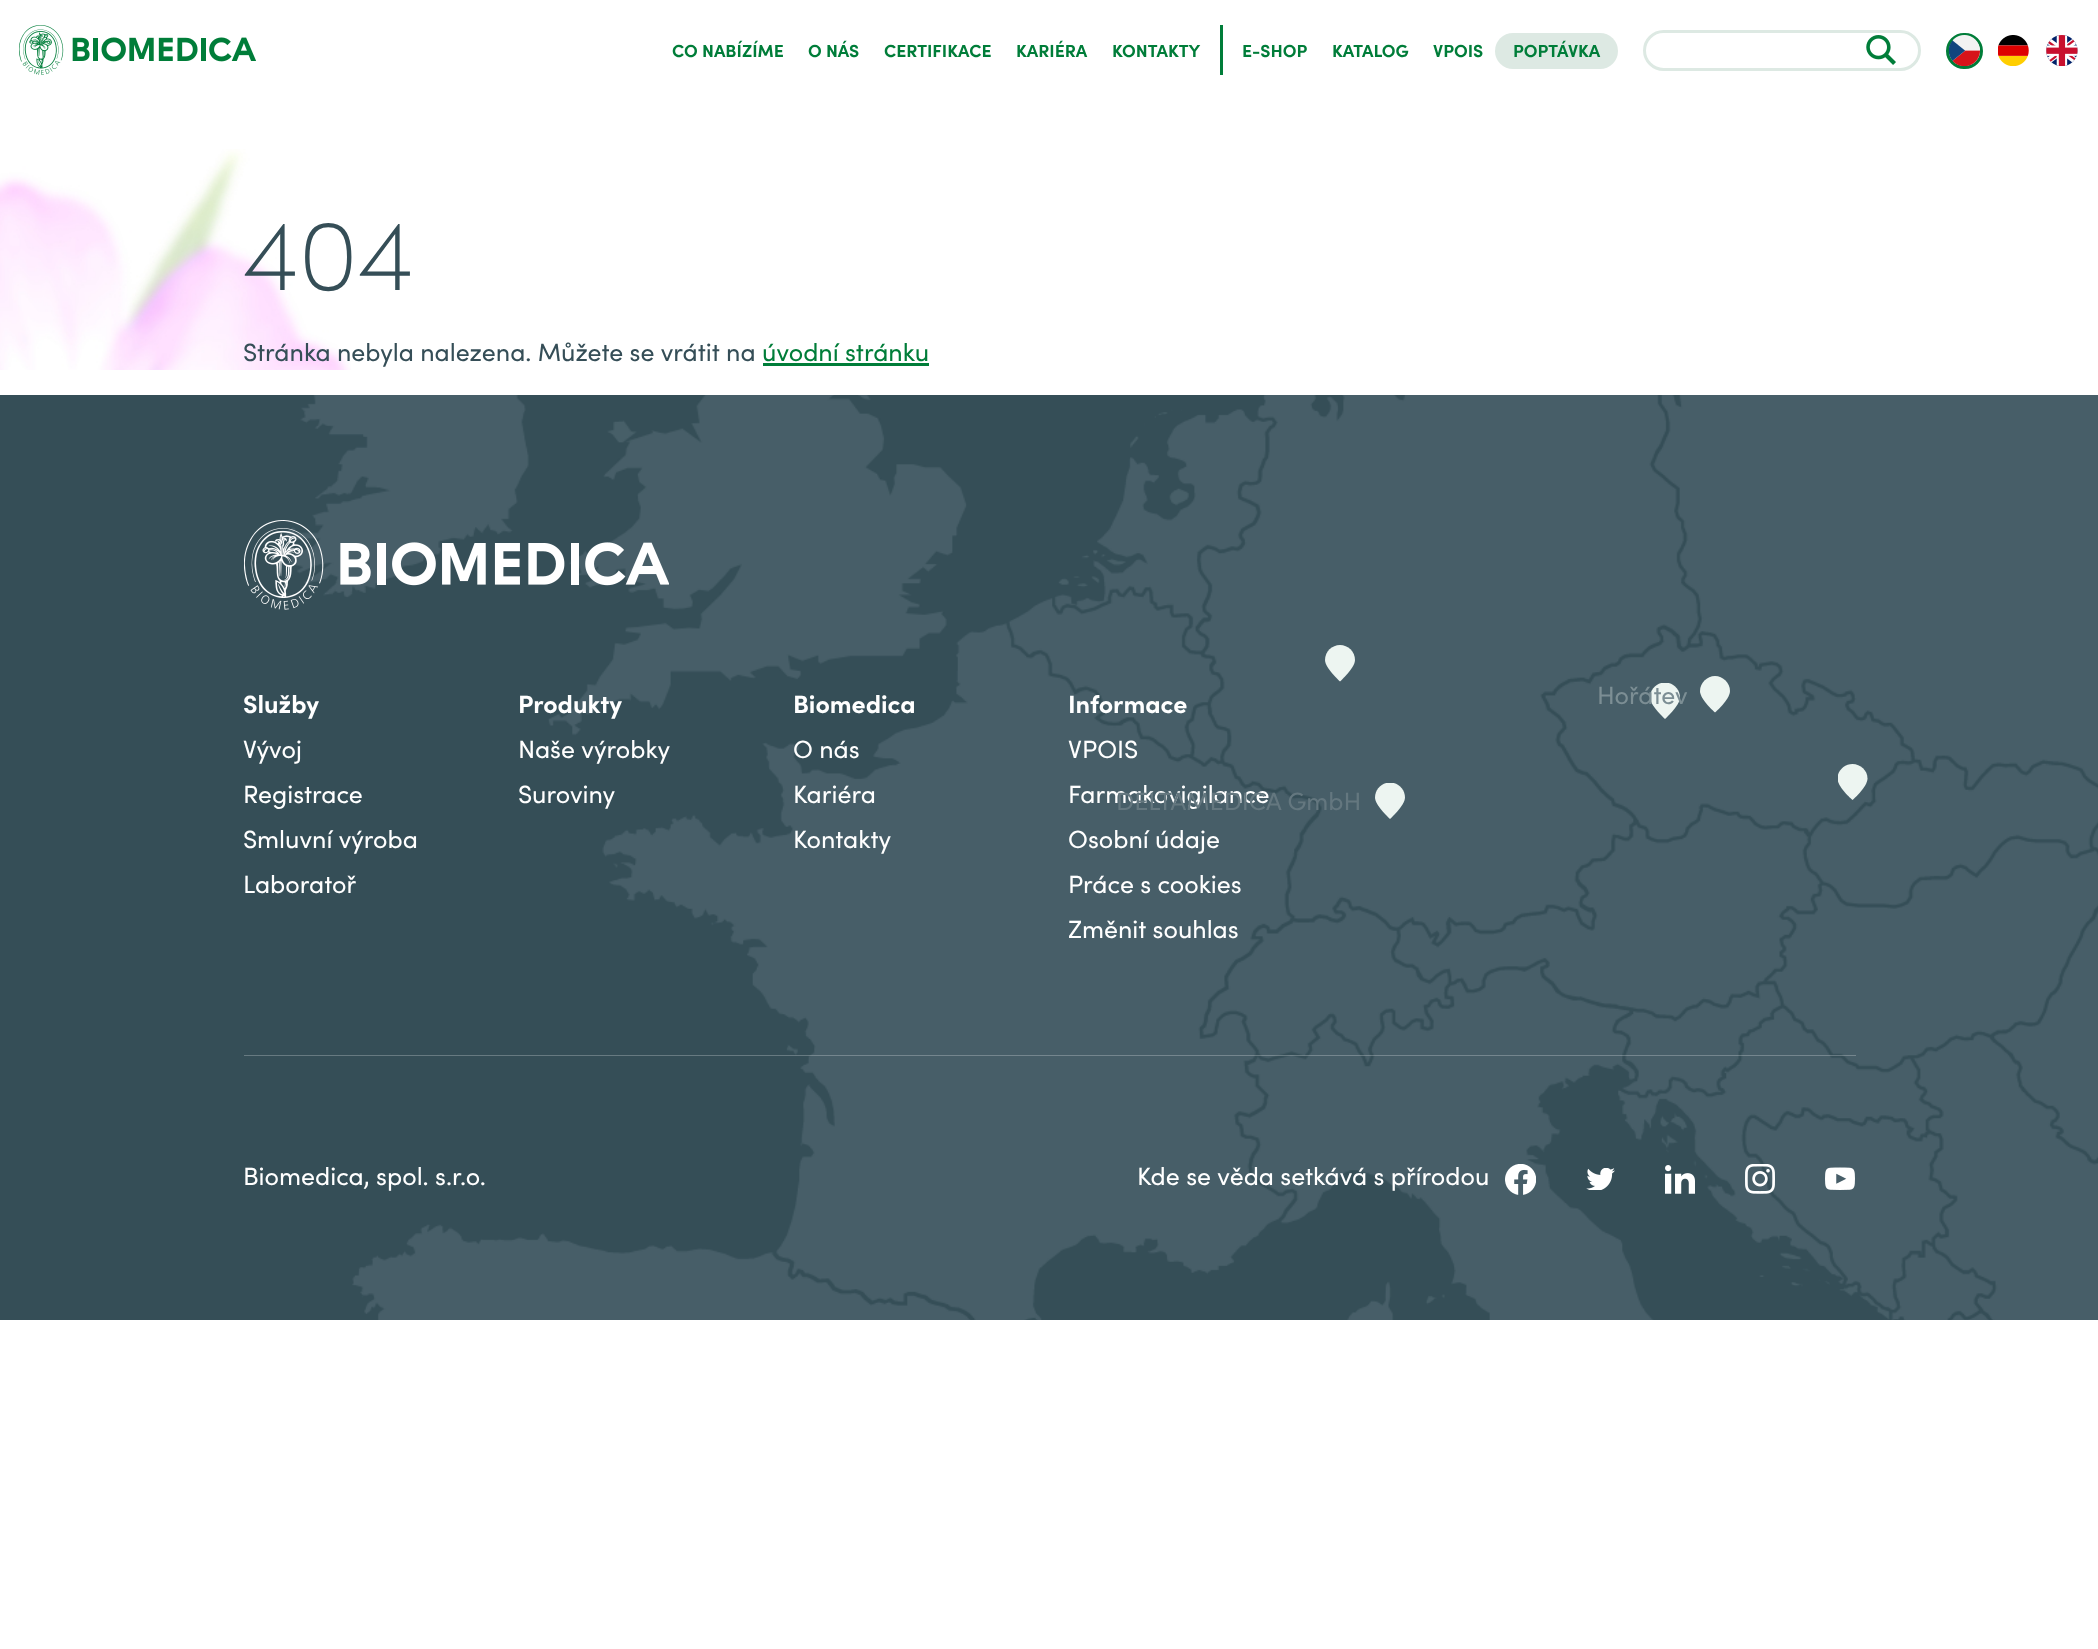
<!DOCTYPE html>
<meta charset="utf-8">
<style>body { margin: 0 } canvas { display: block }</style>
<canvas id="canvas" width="2098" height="1649"></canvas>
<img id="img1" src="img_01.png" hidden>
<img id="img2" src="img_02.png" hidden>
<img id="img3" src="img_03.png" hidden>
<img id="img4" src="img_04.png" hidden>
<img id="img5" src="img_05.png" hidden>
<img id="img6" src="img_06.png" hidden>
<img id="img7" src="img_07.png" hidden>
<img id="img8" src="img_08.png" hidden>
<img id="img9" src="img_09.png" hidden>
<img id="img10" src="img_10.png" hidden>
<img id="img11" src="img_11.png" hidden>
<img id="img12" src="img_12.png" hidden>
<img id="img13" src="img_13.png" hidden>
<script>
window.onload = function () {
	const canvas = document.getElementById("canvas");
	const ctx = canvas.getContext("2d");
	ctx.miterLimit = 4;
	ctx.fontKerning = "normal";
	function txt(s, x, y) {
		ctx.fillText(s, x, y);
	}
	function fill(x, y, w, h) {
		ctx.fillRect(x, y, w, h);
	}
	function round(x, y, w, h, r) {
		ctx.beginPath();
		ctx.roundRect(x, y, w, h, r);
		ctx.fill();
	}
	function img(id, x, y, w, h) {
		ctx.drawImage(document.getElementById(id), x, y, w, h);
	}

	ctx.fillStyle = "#FFFFFF";
	fill(0, 0, 2098, 1649);
	img("img1", 19, 25, 237, 50);
	ctx.fillStyle = "#007D39";
	fill(1220, 25, 3, 50);
	ctx.fillStyle = "#DDE9E3";
	round(1495, 33, 123, 36, 18);
	ctx.beginPath();
	ctx.roundRect(1644.5, 31.5, 275, 38, 19);
	ctx.strokeStyle = "#DDE9E3";
	ctx.lineWidth = 3;
	ctx.stroke();
	img("img2", 1866, 35, 30, 30);
	ctx.beginPath();
	ctx.roundRect(1947.5, 34.5, 34, 33, 16.5);
	ctx.strokeStyle = "#007D39";
	ctx.stroke();
	img("img3", 1949, 35, 31, 31);
	img("img4", 1998, 35, 31, 31);
	img("img5", 2046, 35, 32, 31);
	img("img6", 0, 149, 351, 221);
	ctx.fillStyle = "#007D39";
	fill(763, 363, 166, 3);
	ctx.fillStyle = "#354E57";
	fill(0, 395, 280, 925);
	img("img7", 280, 395, 1818, 925);
	img("img8", 244, 520, 425, 90);
	ctx.fillStyle = "#EDF5F1";
	ctx.beginPath();
	ctx.moveTo(1340, 645);
	ctx.bezierCurveTo(1348, 645, 1355, 651.5, 1355, 660);
	ctx.bezierCurveTo(1355, 668, 1340, 681.5, 1340, 681.5);
	ctx.bezierCurveTo(1340, 681.5, 1325, 668, 1325, 660);
	ctx.bezierCurveTo(1325, 651.5, 1332, 645, 1340, 645);
	ctx.closePath();
	ctx.fill();
	ctx.save();
	ctx.beginPath();
	ctx.rect(1650, 683, 30, 36);
	ctx.clip();
	ctx.beginPath();
	ctx.moveTo(1665, 682.5);
	ctx.bezierCurveTo(1673, 682.5, 1680, 689, 1680, 697.5);
	ctx.bezierCurveTo(1680, 705.5, 1665, 719, 1665, 719);
	ctx.bezierCurveTo(1665, 719, 1650, 705.5, 1650, 697.5);
	ctx.bezierCurveTo(1650, 689, 1657, 682.5, 1665, 682.5);
	ctx.closePath();
	ctx.fill();
	ctx.restore();
	ctx.beginPath();
	ctx.moveTo(1715, 676);
	ctx.bezierCurveTo(1723, 676, 1730, 683, 1730, 691);
	ctx.bezierCurveTo(1730, 699.5, 1715, 712.5, 1715, 712.5);
	ctx.bezierCurveTo(1715, 712.5, 1700, 699.5, 1700, 691);
	ctx.bezierCurveTo(1700, 683, 1707, 676, 1715, 676);
	ctx.closePath();
	ctx.fill();
	ctx.save();
	ctx.beginPath();
	ctx.rect(1375, 783, 30, 36);
	ctx.clip();
	ctx.beginPath();
	ctx.moveTo(1390, 782.5);
	ctx.bezierCurveTo(1398, 782.5, 1405, 789, 1405, 797.5);
	ctx.bezierCurveTo(1405, 805.5, 1390, 819, 1390, 819);
	ctx.bezierCurveTo(1390, 819, 1375, 805.5, 1375, 797.5);
	ctx.bezierCurveTo(1375, 789, 1382, 782.5, 1390, 782.5);
	ctx.closePath();
	ctx.fill();
	ctx.restore();
	ctx.save();
	ctx.beginPath();
	ctx.rect(1838, 764, 30, 36);
	ctx.clip();
	ctx.beginPath();
	ctx.moveTo(1852.5, 764);
	ctx.bezierCurveTo(1860.5, 764, 1867.5, 770.5, 1867.5, 778.5);
	ctx.bezierCurveTo(1867.5, 787, 1852.5, 800, 1852.5, 800);
	ctx.bezierCurveTo(1852.5, 800, 1837.5, 787, 1837.5, 778.5);
	ctx.bezierCurveTo(1837.5, 770.5, 1844.5, 764, 1852.5, 764);
	ctx.closePath();
	ctx.fill();
	ctx.restore();
	ctx.fillStyle = "rgba(255, 255, 255, 0.25)";
	fill(244, 1055, 1612, 1);
	img("img9", 1505, 1164, 31, 31);
	img("img10", 1586, 1168, 29, 22);
	img("img11", 1665, 1165, 30, 29);
	img("img12", 1745, 1164, 30, 30);
	img("img13", 1825, 1167, 30, 23);
	ctx.font = "bold 17.5px Sofia";
	ctx.fillStyle = "#007D39";
	txt("CO NABÍZÍME", 672, 57);
	txt("O NÁS", 808, 57);
	txt("CERTIFIKACE", 884, 57);
	txt("KARIÉRA", 1016, 57);
	txt("KONTAKTY", 1112, 57);
	txt("E-SHOP", 1242, 57);
	txt("KATALOG", 1332, 57);
	txt("VPOIS", 1433, 57);
	txt("POPTÁVKA", 1513, 57);
	ctx.font = "200 100px Sofia";
	ctx.fillStyle = "#354E57";
	txt("404", 243, 290);
	ctx.font = "25px Sofia";
	txt("Stránka nebyla nalezena. Můžete se vrátit na", 243, 361);
	ctx.fillStyle = "#007D39";
	txt("úvodní stránku", 762, 361);
	ctx.fillStyle = "#7C8E94";
	txt("Hořátev", 1597, 704);
	ctx.font = "bold 25px Sofia";
	ctx.fillStyle = "#FFFFFF";
	txt("Služby", 243, 713);
	ctx.font = "25px Sofia";
	txt("Vývoj", 243, 758);
	txt("Registrace", 243, 803);
	txt("Smluvní výroba", 243, 848);
	txt("Laboratoř", 243, 893);
	ctx.font = "bold 25px Sofia";
	txt("Produkty", 518, 713);
	ctx.font = "25px Sofia";
	txt("Naše výrobky", 518, 758);
	txt("Suroviny", 518, 803);
	ctx.font = "bold 25px Sofia";
	txt("Biomedica", 793, 713);
	ctx.font = "25px Sofia";
	txt("O nás", 793, 758);
	txt("Kariéra", 793, 803);
	txt("Kontakty", 793, 848);
	ctx.font = "bold 25px Sofia";
	txt("Informace", 1068, 713);
	ctx.font = "25px Sofia";
	txt("VPOIS", 1068, 758);
	txt("Farmakovigilance", 1068, 803);
	ctx.fillStyle = "#64777F";
	txt("DELTAMEDICA GmbH", 1116, 810);
	ctx.fillStyle = "#FFFFFF";
	txt("Osobní údaje", 1068, 848);
	txt("Práce s cookies", 1068, 893);
	txt("Změnit souhlas", 1068, 938);
	txt("Biomedica, spol. s.r.o.", 243, 1185);
	txt("Kde se věda setkává s přírodou", 1137, 1185);
};
</script>
